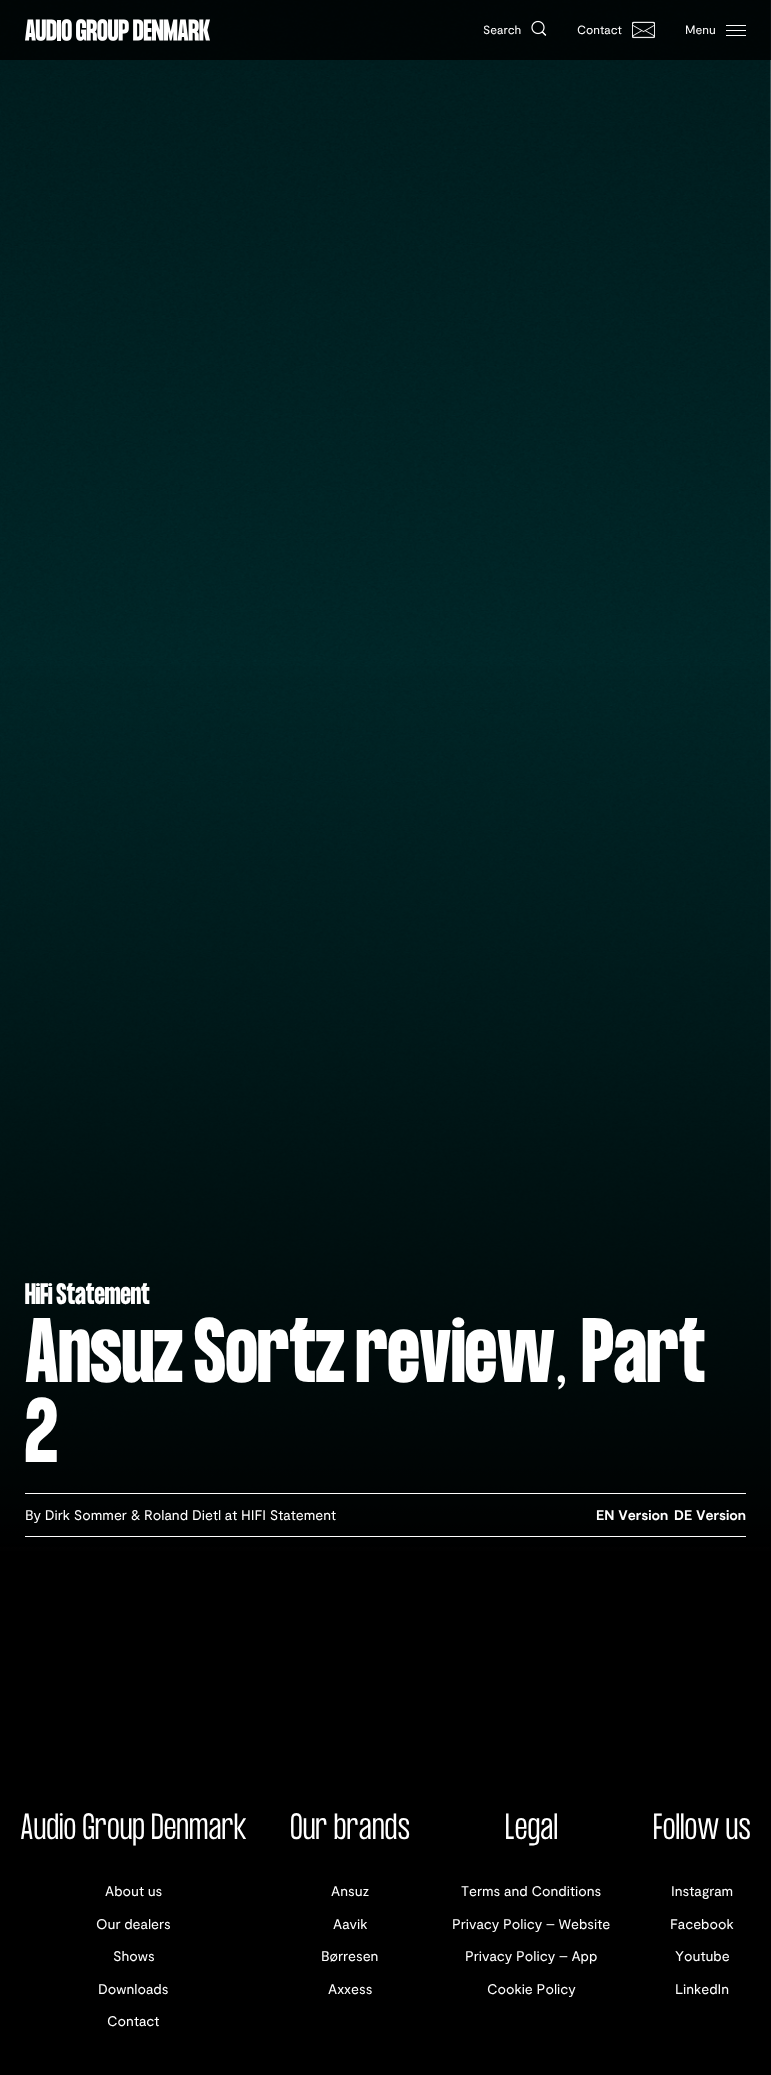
<!DOCTYPE html>
<meta charset="utf-8">
<style>body { margin: 0 } canvas { display: block }</style>
<canvas id="canvas" width="771" height="2075"></canvas>
<img id="img1" src="img_04.png" hidden>
<img id="img2" src="img_01.png" hidden>
<img id="img3" src="img_02.png" hidden>
<img id="img4" src="img_03.png" hidden>
<script>
window.onload = function () {
	const canvas = document.getElementById("canvas");
	const ctx = canvas.getContext("2d");
	ctx.miterLimit = 4;
	ctx.fontKerning = "none";
	function txt(s, x, y) {
		ctx.fillText(s, x, y);
	}
	function fill(x, y, w, h) {
		ctx.fillRect(x, y, w, h);
	}
	function img(id, x, y, w, h) {
		ctx.drawImage(document.getElementById(id), x, y, w, h);
	}
	let gradient;

	ctx.fillStyle = "#FFFFFF";
	fill(0, 0, 771, 2075);
	img("img1", 0, 0, 771, 1547);
	ctx.fillStyle = "rgba(0, 0, 0, 0.8)";
	fill(0, 0, 771, 60);
	img("img2", 25, 19, 185, 22);
	img("img3", 531, 20, 16, 16);
	img("img4", 632, 21, 23, 18);
	ctx.fillStyle = "#FFFFFF";
	fill(726, 25, 20, 1);
	fill(726, 30, 20, 1);
	fill(726, 35, 20, 1);
	gradient = ctx.createLinearGradient(386, 1677, 386, -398);
	gradient.addColorStop(0.06, "#000000");
	gradient.addColorStop(0.5, "rgba(0, 0, 0, 0)");
	ctx.fillStyle = gradient;
	fill(0, 666, 771, 1011);
	ctx.fillStyle = "#FFFFFF";
	fill(25, 1493, 721, 1);
	fill(25, 1536, 721, 1);
	ctx.fillStyle = "#000000";
	fill(0, 1677, 771, 398);
	ctx.font = "12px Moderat";
	ctx.fillStyle = "#FFFFFF";
	txt("Search", 483, 34);
	txt("Contact", 577, 34);
	txt("Menu", 685, 34);
	ctx.font = "800 26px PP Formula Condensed";
	txt("HiFi Statement", 25, 1304);
	ctx.font = "800 80px PP Formula Condensed";
	txt("Ansuz Sortz review", 25, 1382);
	ctx.font = "300 80px PP Formula Condensed";
	txt(",", 555, 1382);
	ctx.font = "800 80px PP Formula Condensed";
	txt("Part", 582, 1382);
	txt("2", 25, 1462);
	ctx.font = "14px Moderat";
	txt("By Dirk Sommer & Roland Dietl at HIFI Statement", 25, 1520);
	ctx.font = "bold 14px Moderat";
	txt("EN Version", 596, 1520);
	txt("DE Version", 674, 1520);
	ctx.font = "300 32px PP Formula Condensed";
	txt("Audio Group Denmark", 20, 1839);
	ctx.font = "14px Moderat";
	txt("About us", 105, 1896);
	txt("Our dealers", 96, 1929);
	txt("Shows", 113, 1961);
	txt("Downloads", 98, 1994);
	txt("Contact", 107, 2026);
	ctx.font = "300 32px PP Formula Condensed";
	txt("Our brands", 290, 1839);
	ctx.font = "14px Moderat";
	txt("Ansuz", 331, 1896);
	txt("Aavik", 333, 1929);
	txt("Børresen", 321, 1961);
	txt("Axxess", 328, 1994);
	ctx.font = "300 32px PP Formula Condensed";
	txt("Legal", 505, 1839);
	ctx.font = "14px Moderat";
	txt("Terms and Conditions", 461, 1896);
	txt("Privacy Policy – Website", 452, 1929);
	txt("Privacy Policy – App", 465, 1961);
	txt("Cookie Policy", 487, 1994);
	ctx.font = "300 32px PP Formula Condensed";
	txt("Follow us", 653, 1839);
	ctx.font = "14px Moderat";
	txt("Instagram", 671, 1896);
	txt("Facebook", 670, 1929);
	txt("Youtube", 675, 1961);
	txt("LinkedIn", 675, 1994);
};
</script>
